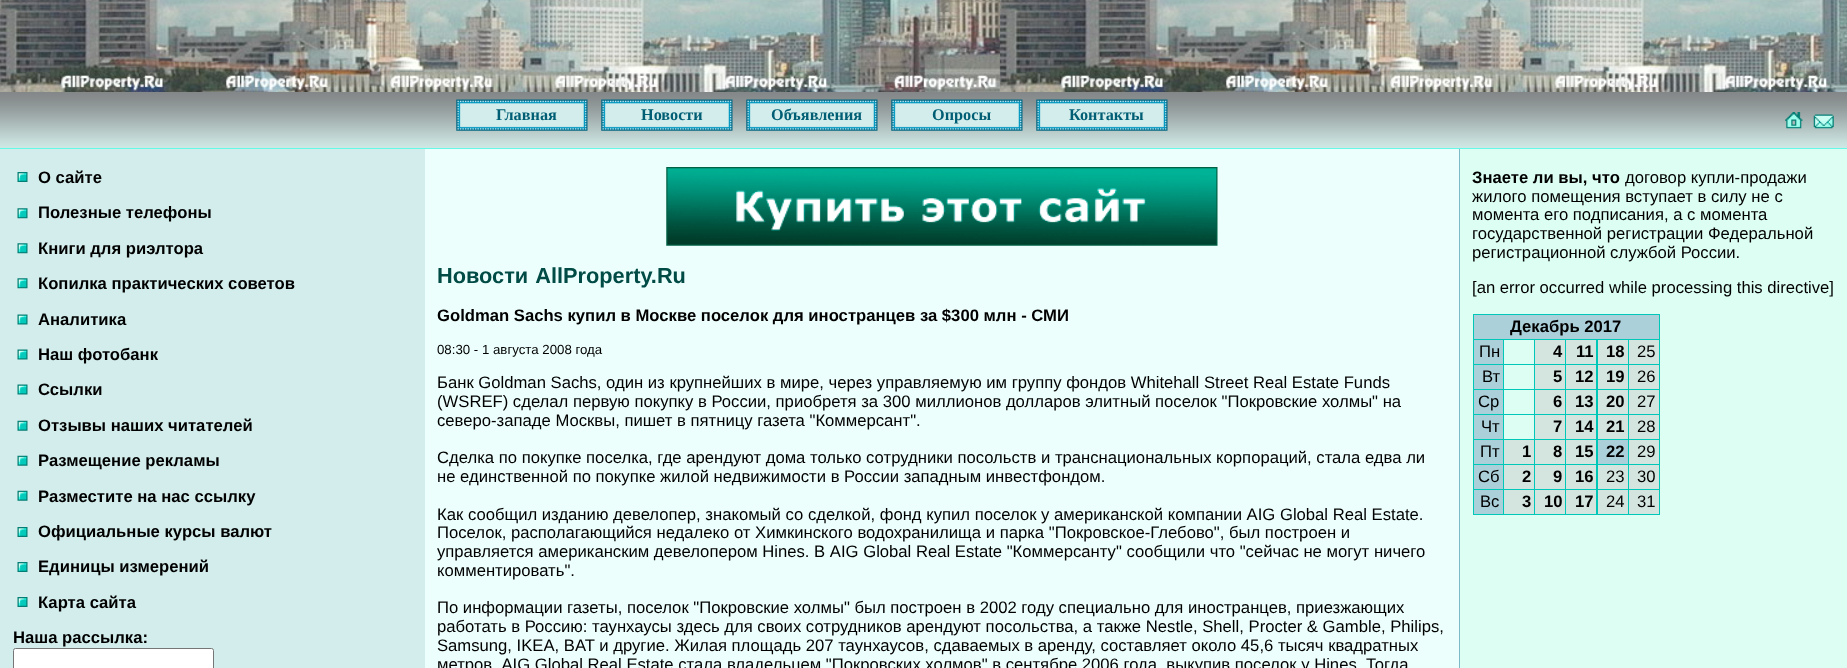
<!DOCTYPE html>
<meta charset="utf-8">
<style>body { margin: 0 } canvas { display: block }</style>
<canvas id="canvas" width="1847" height="668"></canvas>
<img id="img1" src="img_01.png" hidden>
<img id="img2" src="img_02.png" hidden>
<img id="img3" src="img_03.png" hidden>
<img id="img4" src="img_04.png" hidden>
<img id="img5" src="img_05.png" hidden>
<img id="img6" src="img_06.png" hidden>
<img id="img7" src="img_07.png" hidden>
<img id="img8" src="img_08.png" hidden>
<img id="img9" src="img_09.png" hidden>
<img id="img10" src="img_10.png" hidden>
<script>
window.onload = function () {
	const canvas = document.getElementById("canvas");
	const ctx = canvas.getContext("2d");
	ctx.miterLimit = 4;
	ctx.fontKerning = "normal";
	function txt(s, x, y) {
		ctx.fillText(s, x, y);
	}
	function fill(x, y, w, h) {
		ctx.fillRect(x, y, w, h);
	}
	function img(id, x, y, w, h) {
		ctx.drawImage(document.getElementById(id), x, y, w, h);
	}

	ctx.fillStyle = "#FFFFFF";
	fill(0, 0, 1847, 668);
	img("img1", 0, 0, 1847, 92);
	ctx.fillStyle = "#44FFEA";
	fill(0, 148, 1847, 1);
	img("img2", 0, 92, 1847, 57);
	img("img3", 456, 99, 132, 32);
	img("img3", 601, 99, 132, 32);
	img("img3", 746, 99, 132, 32);
	img("img3", 891, 99, 132, 32);
	img("img3", 1036, 99, 132, 32);
	img("img4", 1785, 112, 18, 17);
	img("img5", 1813, 114, 21, 15);
	ctx.fillStyle = "#D2EDEB";
	fill(0, 149, 425, 519);
	img("img6", 17, 172, 11, 10);
	img("img7", 17, 208, 11, 11);
	img("img7", 17, 243, 11, 11);
	img("img7", 17, 278, 11, 11);
	img("img8", 17, 314, 11, 11);
	img("img8", 17, 349, 11, 11);
	img("img8", 17, 384, 11, 11);
	img("img9", 17, 420, 11, 11);
	img("img9", 17, 455, 11, 11);
	img("img9", 17, 490, 11, 11);
	img("img6", 17, 527, 11, 10);
	img("img6", 17, 562, 11, 10);
	img("img6", 17, 597, 11, 10);
	ctx.fillStyle = "#FFFFFF";
	ctx.beginPath();
	ctx.roundRect(13.5, 648.5, 200, 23, 2);
	ctx.fill();
	ctx.strokeStyle = "#767676";
	ctx.stroke();
	ctx.fillStyle = "#ECFFFC";
	fill(425, 149, 1034, 519);
	img("img10", 666, 167, 552, 79);
	ctx.fillStyle = "#7EB9C7";
	fill(1459, 149, 1, 519);
	ctx.fillStyle = "#DDFFF3";
	fill(1460, 149, 387, 519);
	ctx.fillStyle = "#00C8B8";
	fill(1473, 314, 187, 201);
	ctx.fillStyle = "#ACD0DA";
	fill(1474, 315, 185, 24);
	fill(1474, 340, 29, 24);
	ctx.fillStyle = "#DDFFF3";
	fill(1504, 340, 30, 24);
	ctx.fillStyle = "#D4E5DF";
	fill(1535, 340, 30, 24);
	fill(1566, 340, 30, 24);
	fill(1598, 340, 30, 24);
	fill(1629, 340, 30, 24);
	ctx.fillStyle = "#ACD0DA";
	fill(1474, 365, 29, 24);
	ctx.fillStyle = "#DDFFF3";
	fill(1504, 365, 30, 24);
	ctx.fillStyle = "#D4E5DF";
	fill(1535, 365, 30, 24);
	fill(1566, 365, 30, 24);
	fill(1598, 365, 30, 24);
	fill(1629, 365, 30, 24);
	ctx.fillStyle = "#ACD0DA";
	fill(1474, 390, 29, 24);
	ctx.fillStyle = "#DDFFF3";
	fill(1504, 390, 30, 24);
	ctx.fillStyle = "#D4E5DF";
	fill(1535, 390, 30, 24);
	fill(1566, 390, 30, 24);
	fill(1598, 390, 30, 24);
	fill(1629, 390, 30, 24);
	ctx.fillStyle = "#ACD0DA";
	fill(1474, 415, 29, 24);
	ctx.fillStyle = "#DDFFF3";
	fill(1504, 415, 30, 24);
	ctx.fillStyle = "#D4E5DF";
	fill(1535, 415, 30, 24);
	fill(1566, 415, 30, 24);
	fill(1598, 415, 30, 24);
	fill(1629, 415, 30, 24);
	ctx.fillStyle = "#ACD0DA";
	fill(1474, 440, 29, 24);
	ctx.fillStyle = "#D4E5DF";
	fill(1504, 440, 30, 24);
	fill(1535, 440, 30, 24);
	fill(1566, 440, 30, 24);
	ctx.fillStyle = "#ACD0DA";
	fill(1598, 440, 30, 24);
	ctx.fillStyle = "#D4E5DF";
	fill(1629, 440, 30, 24);
	ctx.fillStyle = "#ACD0DA";
	fill(1474, 465, 29, 24);
	ctx.fillStyle = "#D4E5DF";
	fill(1504, 465, 30, 24);
	fill(1535, 465, 30, 24);
	fill(1566, 465, 30, 24);
	fill(1598, 465, 30, 24);
	fill(1629, 465, 30, 24);
	ctx.fillStyle = "#ACD0DA";
	fill(1474, 490, 29, 24);
	ctx.fillStyle = "#D4E5DF";
	fill(1504, 490, 30, 24);
	fill(1535, 490, 30, 24);
	fill(1566, 490, 30, 24);
	fill(1598, 490, 30, 24);
	fill(1629, 490, 30, 24);
	ctx.font = "bold 16.25px Liberation Serif";
	ctx.fillStyle = "#005E74";
	txt("Главная", 496, 120);
	txt("Новости", 641, 120);
	txt("Объявления", 771, 120);
	txt("Опросы", 932, 120);
	txt("Контакты", 1069, 120);
	ctx.font = "bold 16.67px Liberation Sans";
	ctx.fillStyle = "#000000";
	txt("О сайте", 38, 183);
	txt("Полезные телефоны", 38, 218);
	txt("Книги для риэлтора", 38, 254);
	txt("Копилка практических советов", 38, 289);
	txt("Аналитика", 38, 325);
	txt("Наш фотобанк", 38, 360);
	txt("Ссылки", 38, 395);
	txt("Отзывы наших читателей", 38, 431);
	txt("Размещение рекламы", 38, 466);
	txt("Разместите на нас ссылку", 38, 502);
	txt("Официальные курсы валют", 38, 537);
	txt("Единицы измерений", 38, 572);
	txt("Карта сайта", 38, 608);
	txt("Наша рассылка:", 13, 643);
	ctx.wordSpacing = "1px";
	ctx.font = "bold 21.75px Liberation Sans";
	ctx.fillStyle = "#004B45";
	txt("Новости AllProperty.Ru", 437, 283);
	ctx.wordSpacing = "0px";
	ctx.font = "bold 16.67px Liberation Sans";
	ctx.fillStyle = "#000000";
	txt("Goldman Sachs купил в Москве поселок для иностранцев за $300 млн - СМИ", 437, 321);
	ctx.font = "13.25px Liberation Sans";
	txt("08:30 - 1 августа 2008 года", 437, 354);
	ctx.font = "16.67px Liberation Sans";
	txt("Банк Goldman Sachs, один из крупнейших в мире, через управляемую им группу фондов Whitehall Street Real Estate Funds", 437, 388);
	txt("(WSREF) сделал первую покупку в России, приобретя за 300 миллионов долларов элитный поселок \"Покровские холмы\" на", 437, 407);
	txt("северо-западе Москвы, пишет в пятницу газета \"Коммерсант\".", 437, 426);
	txt("Сделка по покупке поселка, где арендуют дома только сотрудники посольств и транснациональных корпораций, стала едва ли", 437, 463);
	txt("не единственной по покупке жилой недвижимости в России западным инвестфондом.", 437, 482);
	txt("Как сообщил изданию девелопер, знакомый со сделкой, фонд купил поселок у американской компании AIG Global Real Estate.", 437, 520);
	txt("Поселок, располагающийся недалеко от Химкинского водохранилища и парка \"Покровское-Глебово\", был построен и", 437, 538);
	txt("управляется американским девелопером Hines. В AIG Global Real Estate \"Коммерсанту\" сообщили что \"сейчас не могут ничего", 437, 557);
	txt("комментировать\".", 437, 576);
	txt("По информации газеты, поселок \"Покровские холмы\" был построен в 2002 году специально для иностранцев, приезжающих", 437, 613);
	txt("работать в Россию: таунхаусы здесь для своих сотрудников арендуют посольства, а также Nestle, Shell, Procter & Gamble, Philips,", 437, 632);
	txt("Samsung, IKEA, BAT и другие. Жилая площадь 207 таунхаусов, сдаваемых в аренду, составляет около 45,6 тысяч квадратных", 437, 651);
	txt("метров. AIG Global Real Estate стала владельцем \"Покровских холмов\" в сентябре 2006 года, выкупив поселок у Hines. Тогда", 437, 670);
	ctx.font = "bold 16.67px Liberation Sans";
	txt("Знаете ли вы, что", 1472, 183);
	ctx.font = "16.67px Liberation Sans";
	txt("договор купли-продажи", 1625, 183);
	txt("жилого помещения вступает в силу не с", 1472, 202);
	txt("момента его подписания, а с момента", 1472, 220);
	txt("государственной регистрации Федеральной", 1472, 239);
	txt("регистрационной службой России.", 1472, 258);
	txt("[an error occurred while processing this directive]", 1472, 293);
	ctx.font = "bold 16.67px Liberation Sans";
	txt("Декабрь 2017", 1510, 332);
	ctx.font = "16.67px Liberation Sans";
	txt("Пн", 1479, 357);
	ctx.font = "bold 16.67px Liberation Sans";
	txt("4", 1553, 357);
	txt("11", 1576, 357);
	txt("18", 1606, 357);
	ctx.font = "16.67px Liberation Sans";
	txt("25", 1637, 357);
	txt("Вт", 1482, 382);
	ctx.font = "bold 16.67px Liberation Sans";
	txt("5", 1553, 382);
	txt("12", 1575, 382);
	txt("19", 1606, 382);
	ctx.font = "16.67px Liberation Sans";
	txt("26", 1637, 382);
	txt("Ср", 1478, 407);
	ctx.font = "bold 16.67px Liberation Sans";
	txt("6", 1553, 407);
	txt("13", 1575, 407);
	txt("20", 1606, 407);
	ctx.font = "16.67px Liberation Sans";
	txt("27", 1637, 407);
	txt("Чт", 1481, 432);
	ctx.font = "bold 16.67px Liberation Sans";
	txt("7", 1553, 432);
	txt("14", 1575, 432);
	txt("21", 1606, 432);
	ctx.font = "16.67px Liberation Sans";
	txt("28", 1637, 432);
	txt("Пт", 1480, 457);
	ctx.font = "bold 16.67px Liberation Sans";
	txt("1", 1522, 457);
	txt("8", 1553, 457);
	txt("15", 1575, 457);
	txt("22", 1606, 457);
	ctx.font = "16.67px Liberation Sans";
	txt("29", 1637, 457);
	txt("Сб", 1478, 482);
	ctx.font = "bold 16.67px Liberation Sans";
	txt("2", 1522, 482);
	txt("9", 1553, 482);
	txt("16", 1575, 482);
	ctx.font = "16.67px Liberation Sans";
	txt("23", 1606, 482);
	txt("30", 1637, 482);
	txt("Вс", 1480, 507);
	ctx.font = "bold 16.67px Liberation Sans";
	txt("3", 1522, 507);
	txt("10", 1544, 507);
	txt("17", 1575, 507);
	ctx.font = "16.67px Liberation Sans";
	txt("24", 1606, 507);
	txt("31", 1637, 507);
};
</script>
